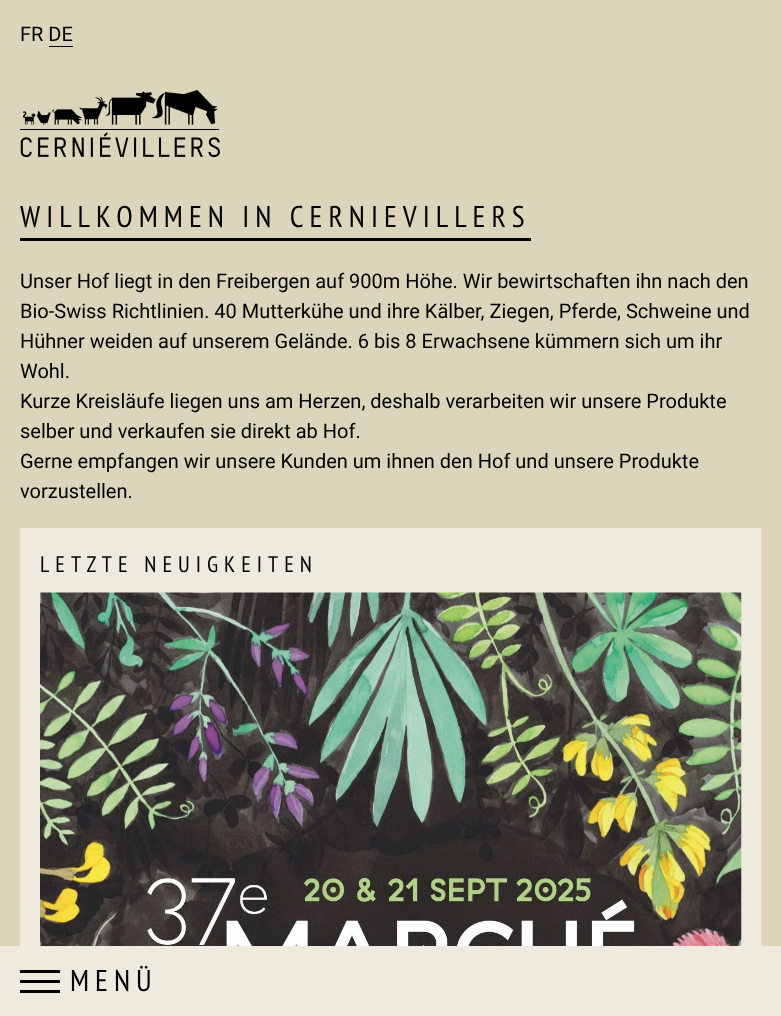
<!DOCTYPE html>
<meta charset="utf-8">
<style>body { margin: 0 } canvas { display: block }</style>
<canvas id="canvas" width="781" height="1016"></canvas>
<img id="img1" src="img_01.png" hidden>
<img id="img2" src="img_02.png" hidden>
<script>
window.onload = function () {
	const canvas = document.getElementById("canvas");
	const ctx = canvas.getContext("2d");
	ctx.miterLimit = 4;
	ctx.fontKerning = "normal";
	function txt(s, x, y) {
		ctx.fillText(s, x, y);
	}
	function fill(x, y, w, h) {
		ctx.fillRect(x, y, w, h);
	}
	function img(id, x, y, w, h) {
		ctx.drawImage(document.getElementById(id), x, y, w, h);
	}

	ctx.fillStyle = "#DCD5BC";
	fill(0, 0, 781, 1016);
	ctx.fillStyle = "#000000";
	fill(49, 46, 24, 1);
	img("img1", 20, 90, 200, 68);
	fill(20, 238, 511, 3);
	ctx.fillStyle = "#EEEADE";
	fill(20, 528, 741, 418);
	img("img2", 40, 592, 702, 354);
	fill(0, 946, 781, 70);
	ctx.fillStyle = "#000000";
	fill(20, 970, 40, 3);
	fill(20, 980, 40, 3);
	fill(20, 990, 40, 3);
	ctx.font = "20px Roboto";
	txt("FR DE", 20, 41);
	ctx.letterSpacing = "6px";
	ctx.font = "30px PT Sans Narrow";
	txt("WILLKOMMEN IN CERNIEVILLERS", 20, 227);
	ctx.letterSpacing = "0px";
	ctx.font = "20px Roboto";
	txt("Unser Hof liegt in den Freibergen auf 900m Höhe. Wir bewirtschaften ihn nach den", 20, 288);
	txt("Bio-Swiss Richtlinien. 40 Mutterkühe und ihre Kälber, Ziegen, Pferde, Schweine und", 20, 318);
	txt("Hühner weiden auf unserem Gelände. 6 bis 8 Erwachsene kümmern sich um ihr", 20, 348);
	txt("Wohl.", 20, 378);
	txt("Kurze Kreisläufe liegen uns am Herzen, deshalb verarbeiten wir unsere Produkte", 20, 408);
	txt("selber und verkaufen sie direkt ab Hof.", 20, 438);
	txt("Gerne empfangen wir unsere Kunden um ihnen den Hof und unsere Produkte", 20, 468);
	txt("vorzustellen.", 20, 498);
	ctx.letterSpacing = "6px";
	ctx.font = "22.5px PT Sans Narrow";
	txt("LETZTE NEUIGKEITEN", 40, 572);
	ctx.font = "30px PT Sans Narrow";
	txt("MENÜ", 70, 991);
};
</script>
